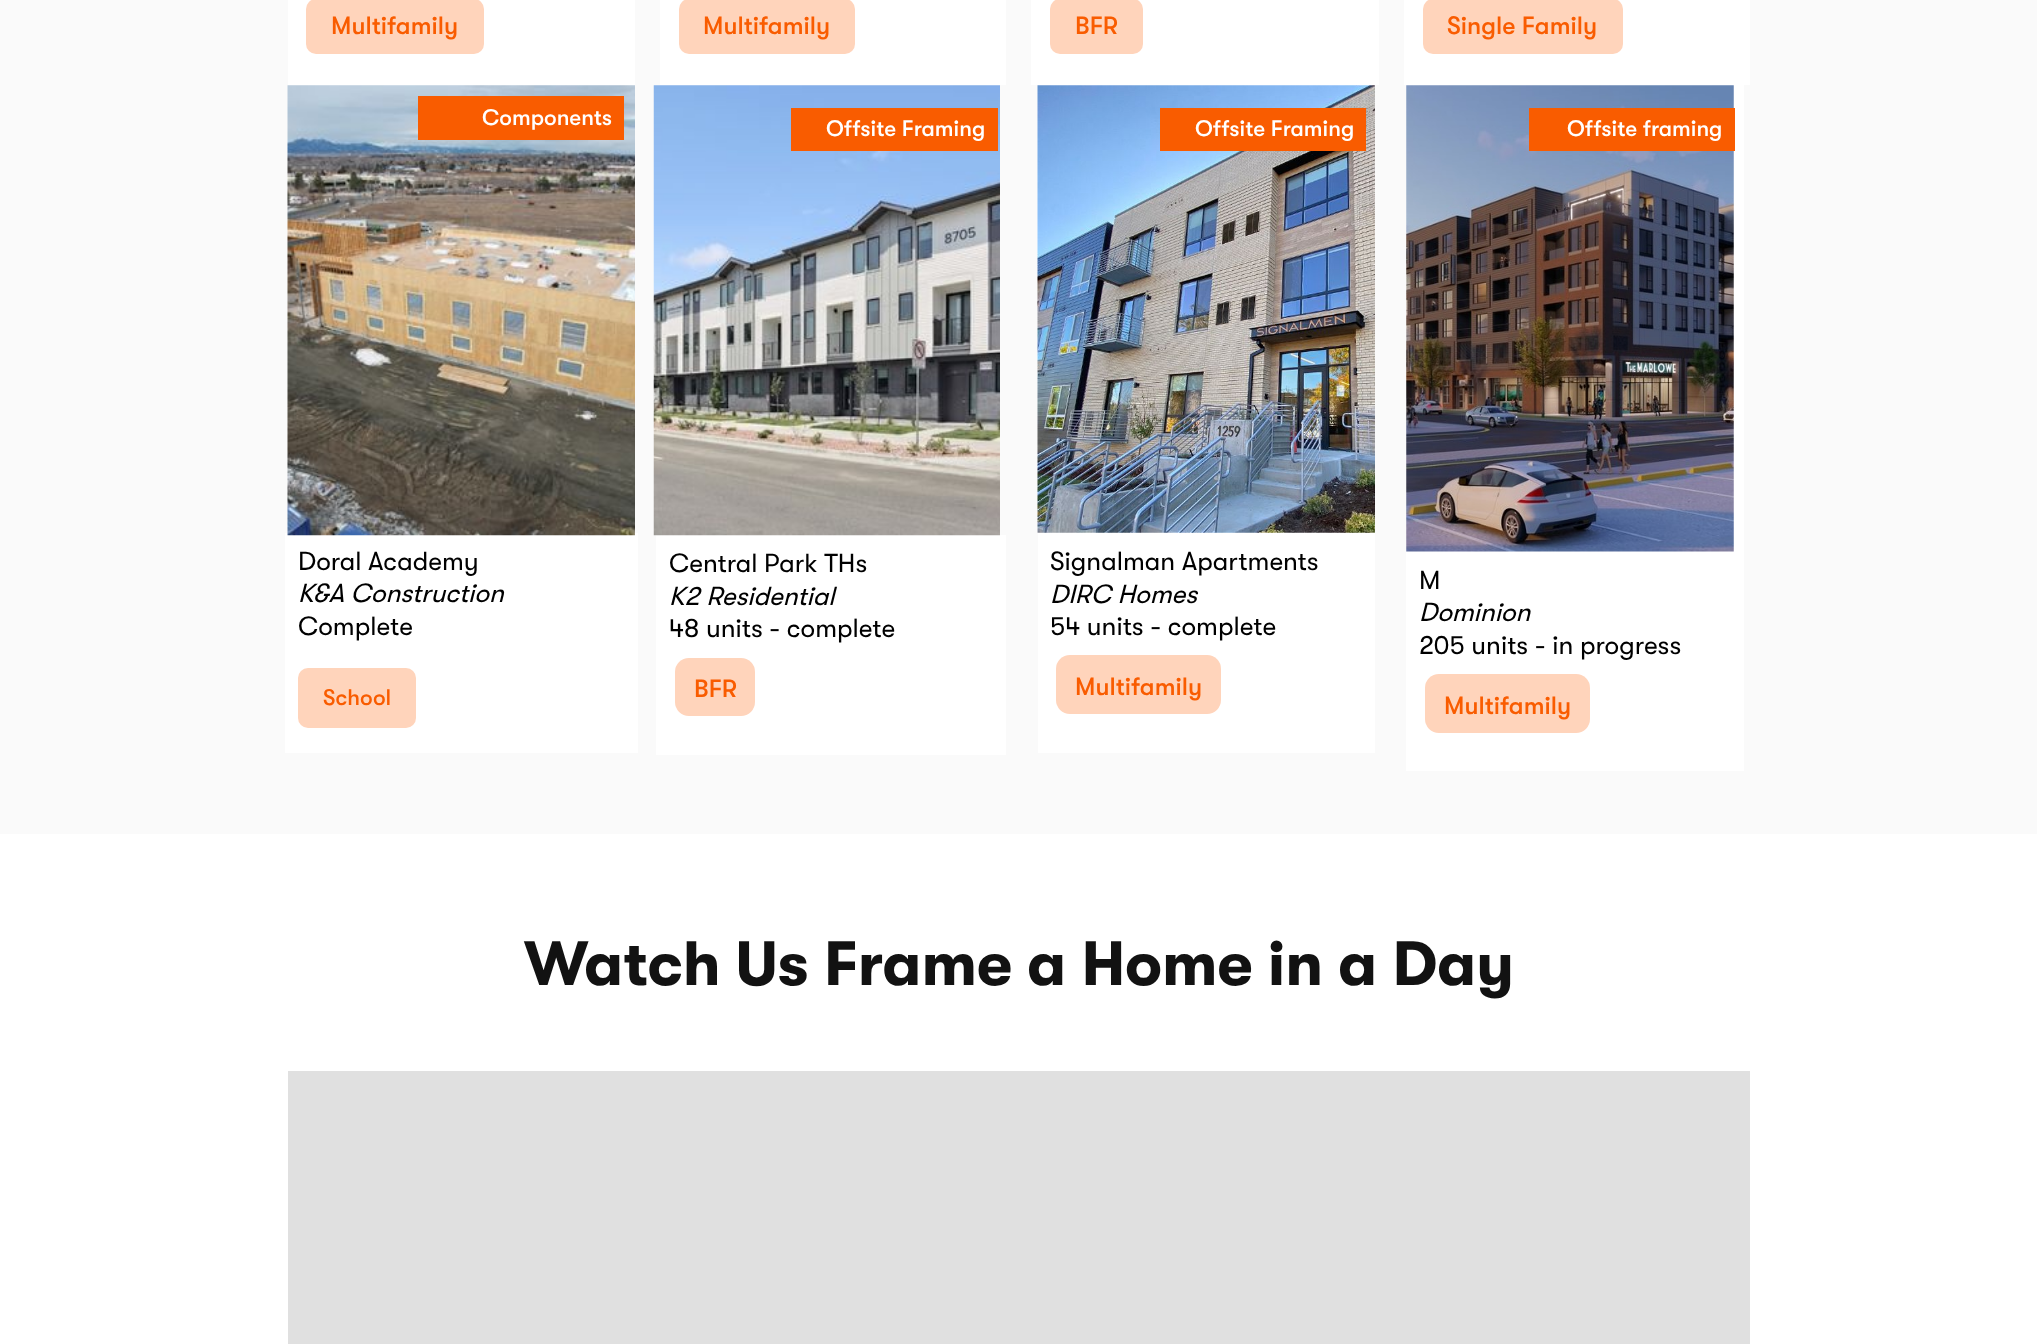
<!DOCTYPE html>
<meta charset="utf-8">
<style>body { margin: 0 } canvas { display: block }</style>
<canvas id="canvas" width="2037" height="1344"></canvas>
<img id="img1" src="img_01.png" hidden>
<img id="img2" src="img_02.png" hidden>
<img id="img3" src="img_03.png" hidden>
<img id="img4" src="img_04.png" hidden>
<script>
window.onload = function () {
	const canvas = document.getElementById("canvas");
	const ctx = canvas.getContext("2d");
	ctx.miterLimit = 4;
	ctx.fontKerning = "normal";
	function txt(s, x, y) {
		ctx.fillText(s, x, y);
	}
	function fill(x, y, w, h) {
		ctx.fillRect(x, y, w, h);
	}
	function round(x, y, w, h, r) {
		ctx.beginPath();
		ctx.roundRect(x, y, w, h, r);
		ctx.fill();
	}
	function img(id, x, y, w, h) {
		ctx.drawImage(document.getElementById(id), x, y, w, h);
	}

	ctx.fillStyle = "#FFFFFF";
	fill(0, 0, 2037, 1344);
	ctx.fillStyle = "#FAFAFA";
	fill(0, 0, 2037, 834);
	ctx.fillStyle = "#FFFFFF";
	fill(288, 0, 347, 85);
	ctx.fillStyle = "#FFD4BB";
	round(306, -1, 178, 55, 10);
	ctx.fillStyle = "#FFFFFF";
	fill(660, 0, 346, 85);
	ctx.fillStyle = "#FFD4BB";
	round(679, -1, 176, 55, 10);
	ctx.fillStyle = "#FFFFFF";
	fill(1031, 0, 348, 85);
	ctx.fillStyle = "#FFD4BB";
	round(1050, -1, 93, 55, 10);
	ctx.fillStyle = "#FFFFFF";
	fill(1404, 0, 346, 85);
	ctx.fillStyle = "#FFD4BB";
	round(1423, -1, 200, 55, 10);
	ctx.fillStyle = "#FFFFFF";
	fill(285, 533, 353, 220);
	img("img1", 287, 85, 348, 451);
	ctx.fillStyle = "#F95C00";
	fill(418, 96, 206, 44);
	ctx.fillStyle = "#FFD4BB";
	round(298, 668, 118, 60, 10);
	ctx.fillStyle = "#FFFFFF";
	fill(656, 535, 350, 220);
	img("img2", 653, 85, 347, 451);
	ctx.fillStyle = "#F95C00";
	fill(791, 108, 207, 43);
	ctx.fillStyle = "#FFD4BB";
	round(675, 658, 80, 58, 14);
	ctx.fillStyle = "#FFFFFF";
	fill(1038, 85, 337, 668);
	img("img3", 1037, 85, 338, 448);
	ctx.fillStyle = "#F95C00";
	fill(1160, 108, 206, 43);
	ctx.fillStyle = "#FFD4BB";
	round(1056, 655, 165, 59, 14);
	ctx.fillStyle = "#FFFFFF";
	fill(1406, 85, 338, 686);
	img("img4", 1406, 85, 328, 467);
	ctx.fillStyle = "#F95C00";
	fill(1529, 108, 206, 43);
	ctx.fillStyle = "#FFD4BB";
	round(1425, 674, 165, 59, 14);
	ctx.fillStyle = "#E0E0E0";
	fill(288, 1071, 1462, 273);
	ctx.font = "500 25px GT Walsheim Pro";
	ctx.fillStyle = "#F95C00";
	txt("Multifamily", 331, 34);
	txt("Multifamily", 703, 34);
	txt("BFR", 1075, 34);
	txt("Single Family", 1447, 34);
	ctx.font = "500 22.5px GT Walsheim Pro";
	ctx.fillStyle = "#FFFFFF";
	txt("Components", 482, 125);
	ctx.font = "26.25px GT Walsheim Pro";
	ctx.fillStyle = "#000000";
	txt("Doral Academy", 298, 570);
	ctx.font = "italic 26.25px GT Walsheim Pro";
	txt("K&A Construction", 298, 602);
	ctx.font = "26.25px GT Walsheim Pro";
	txt("Complete", 298, 635);
	ctx.font = "500 22.5px GT Walsheim Pro";
	ctx.fillStyle = "#F95C00";
	txt("School", 323, 705);
	ctx.fillStyle = "#FFFFFF";
	txt("Offsite Framing", 826, 136);
	ctx.font = "26.25px GT Walsheim Pro";
	ctx.fillStyle = "#000000";
	txt("Central Park THs", 669, 572);
	ctx.font = "italic 26.25px GT Walsheim Pro";
	txt("K2 Residential", 669, 605);
	ctx.font = "26.25px GT Walsheim Pro";
	txt("48 units - complete", 669, 637);
	ctx.font = "500 25px GT Walsheim Pro";
	ctx.fillStyle = "#F95C00";
	txt("BFR", 694, 697);
	ctx.font = "500 22.5px GT Walsheim Pro";
	ctx.fillStyle = "#FFFFFF";
	txt("Offsite Framing", 1195, 136);
	ctx.font = "26.25px GT Walsheim Pro";
	ctx.fillStyle = "#000000";
	txt("Signalman Apartments", 1050, 570);
	ctx.font = "italic 26.25px GT Walsheim Pro";
	txt("DIRC Homes", 1050, 603);
	ctx.font = "26.25px GT Walsheim Pro";
	txt("54 units - complete", 1050, 635);
	ctx.font = "500 25px GT Walsheim Pro";
	ctx.fillStyle = "#F95C00";
	txt("Multifamily", 1075, 695);
	ctx.font = "500 22.5px GT Walsheim Pro";
	ctx.fillStyle = "#FFFFFF";
	txt("Offsite framing", 1567, 136);
	ctx.font = "26.25px GT Walsheim Pro";
	ctx.fillStyle = "#000000";
	txt("M", 1419, 589);
	ctx.font = "italic 26.25px GT Walsheim Pro";
	txt("Dominion", 1419, 621);
	ctx.font = "26.25px GT Walsheim Pro";
	txt("205 units - in progress", 1419, 654);
	ctx.font = "500 25px GT Walsheim Pro";
	ctx.fillStyle = "#F95C00";
	txt("Multifamily", 1444, 714);
	ctx.font = "bold 62.5px GT Walsheim Pro";
	ctx.fillStyle = "#121212";
	txt("Watch Us Frame a Home in a Day", 524, 985);
};
</script>
